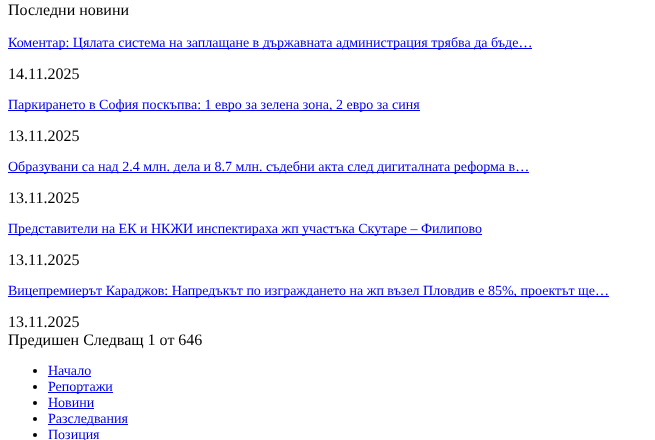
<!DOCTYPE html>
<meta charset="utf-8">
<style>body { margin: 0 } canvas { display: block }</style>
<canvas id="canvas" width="655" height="440"></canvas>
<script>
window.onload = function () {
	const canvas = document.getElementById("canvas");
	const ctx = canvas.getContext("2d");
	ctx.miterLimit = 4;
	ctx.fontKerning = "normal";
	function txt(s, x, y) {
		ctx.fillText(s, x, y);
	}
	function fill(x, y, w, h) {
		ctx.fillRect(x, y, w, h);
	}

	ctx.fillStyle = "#FFFFFF";
	fill(0, 0, 655, 440);
	ctx.fillStyle = "#0000EE";
	fill(8, 48, 524, 1);
	fill(8, 110, 412, 1);
	fill(8, 172, 521, 1);
	fill(8, 234, 474, 1);
	fill(8, 296, 601, 1);
	ctx.fillStyle = "#000000";
	ctx.beginPath();
	ctx.arc(35, 371, 2, 0, Math.PI * 2);
	ctx.fill();
	ctx.fillStyle = "#0000EE";
	fill(48, 376, 43, 1);
	ctx.fillStyle = "#000000";
	ctx.beginPath();
	ctx.arc(35, 387, 2, 0, Math.PI * 2);
	ctx.fill();
	ctx.fillStyle = "#0000EE";
	fill(48, 392, 65, 1);
	ctx.fillStyle = "#000000";
	ctx.beginPath();
	ctx.arc(35, 403, 2, 0, Math.PI * 2);
	ctx.fill();
	ctx.fillStyle = "#0000EE";
	fill(48, 408, 46, 1);
	ctx.fillStyle = "#000000";
	ctx.beginPath();
	ctx.arc(35, 419, 2, 0, Math.PI * 2);
	ctx.fill();
	ctx.fillStyle = "#0000EE";
	fill(48, 424, 80, 1);
	ctx.fillStyle = "#000000";
	ctx.beginPath();
	ctx.arc(35, 435, 2, 0, Math.PI * 2);
	ctx.fill();
	ctx.font = "16px Liberation Serif";
	txt("Последни новини", 8, 15);
	ctx.font = "14px Liberation Serif";
	ctx.fillStyle = "#0000EE";
	txt("Коментар: Цялата система на заплащане в държавната администрация трябва да бъде…", 8, 47);
	ctx.font = "16px Liberation Serif";
	ctx.fillStyle = "#000000";
	txt("14.11.2025", 8, 79);
	ctx.font = "14px Liberation Serif";
	ctx.fillStyle = "#0000EE";
	txt("Паркирането в София поскъпва: 1 евро за зелена зона, 2 евро за синя", 8, 109);
	ctx.font = "16px Liberation Serif";
	ctx.fillStyle = "#000000";
	txt("13.11.2025", 8, 141);
	ctx.font = "14px Liberation Serif";
	ctx.fillStyle = "#0000EE";
	txt("Образувани са над 2.4 млн. дела и 8.7 млн. съдебни акта след дигиталната реформа в…", 8, 171);
	ctx.font = "16px Liberation Serif";
	ctx.fillStyle = "#000000";
	txt("13.11.2025", 8, 203);
	ctx.font = "14px Liberation Serif";
	ctx.fillStyle = "#0000EE";
	txt("Представители на ЕК и НКЖИ инспектираха жп участъка Скутаре – Филипово", 8, 233);
	ctx.font = "16px Liberation Serif";
	ctx.fillStyle = "#000000";
	txt("13.11.2025", 8, 265);
	ctx.font = "14px Liberation Serif";
	ctx.fillStyle = "#0000EE";
	txt("Вицепремиерът Караджов: Напредъкът по изграждането на жп възел Пловдив е 85%, проектът ще…", 8, 295);
	ctx.font = "16px Liberation Serif";
	ctx.fillStyle = "#000000";
	txt("13.11.2025", 8, 327);
	txt("Предишен Следващ 1 от 646", 8, 345);
	ctx.font = "14px Liberation Serif";
	ctx.fillStyle = "#0000EE";
	txt("Начало", 48, 375);
	txt("Репортажи", 48, 391);
	txt("Новини", 48, 407);
	txt("Разследвания", 48, 423);
	txt("Позиция", 48, 439);
};
</script>
